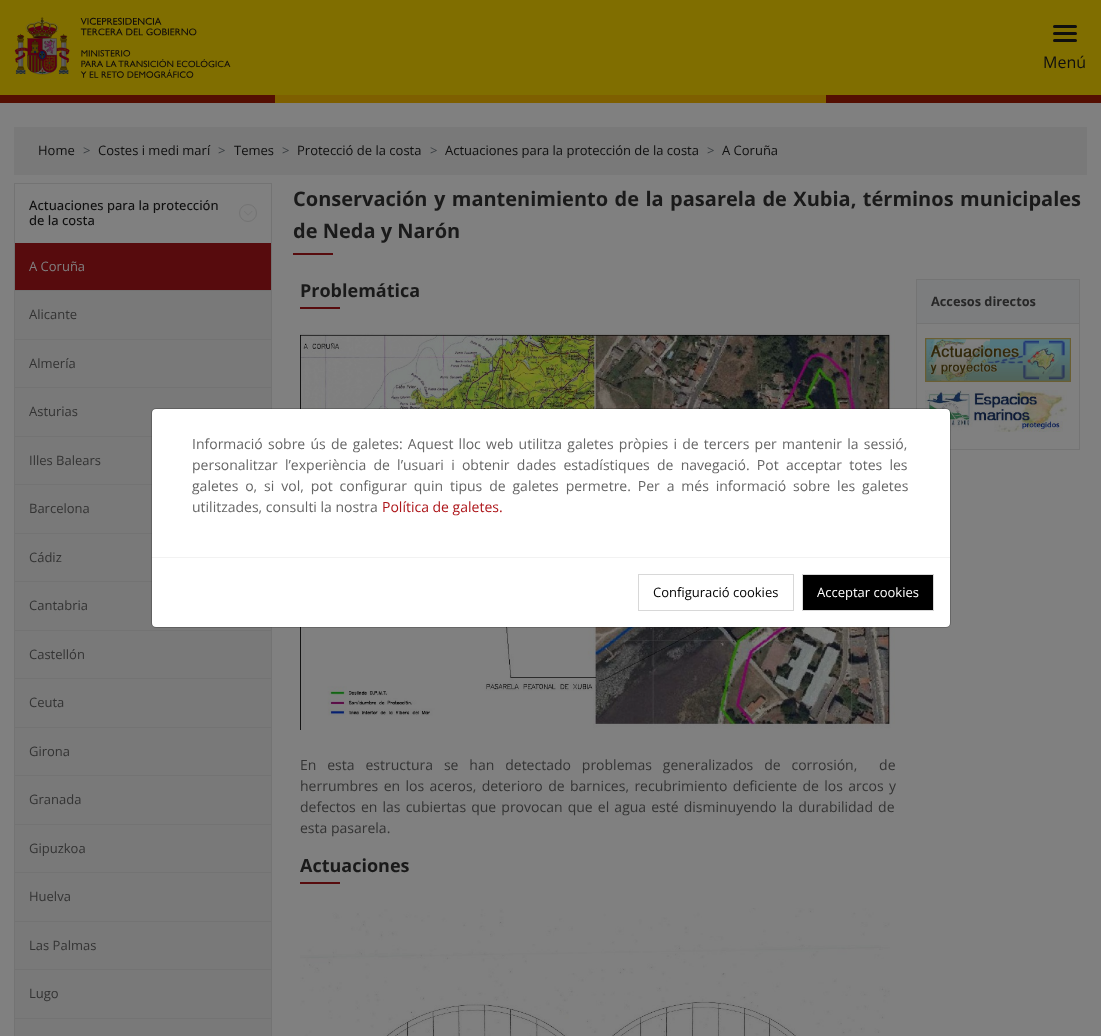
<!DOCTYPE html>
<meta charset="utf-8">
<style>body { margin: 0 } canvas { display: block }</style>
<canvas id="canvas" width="1101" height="1036"></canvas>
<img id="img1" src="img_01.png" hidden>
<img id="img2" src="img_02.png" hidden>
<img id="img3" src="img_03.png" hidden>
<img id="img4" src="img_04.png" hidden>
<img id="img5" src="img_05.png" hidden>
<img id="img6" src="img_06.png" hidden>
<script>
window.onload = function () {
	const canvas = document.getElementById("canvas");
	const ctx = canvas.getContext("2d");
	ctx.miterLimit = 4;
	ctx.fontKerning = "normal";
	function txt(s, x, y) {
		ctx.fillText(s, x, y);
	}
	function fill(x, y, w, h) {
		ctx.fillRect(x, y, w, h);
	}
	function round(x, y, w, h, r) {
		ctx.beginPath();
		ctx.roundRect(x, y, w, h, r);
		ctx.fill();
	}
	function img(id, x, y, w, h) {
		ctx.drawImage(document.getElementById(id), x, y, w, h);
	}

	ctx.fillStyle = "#808080";
	fill(0, 0, 1101, 1036);
	ctx.fillStyle = "#806E00";
	fill(0, 0, 1101, 95);
	ctx.fillStyle = "#7E5F00";
	fill(275, 95, 551, 8);
	img("img1", 14, 17, 217, 61);
	ctx.fillStyle = "#0F0F0E";
	round(1053, 25, 24, 3, 1.5);
	round(1053, 32, 24, 3, 1.5);
	round(1053, 39, 24, 3, 1.5);
	ctx.fillStyle = "#540F02";
	fill(0, 95, 275, 8);
	fill(826, 95, 275, 8);
	ctx.fillStyle = "#797979";
	fill(14, 127, 1073, 48);
	ctx.strokeStyle = "#737373";
	ctx.strokeRect(14.5, 183.5, 257, 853);
	img("img2", 244, 211, 9, 5);
	ctx.beginPath();
	ctx.arc(248, 213, 8.5, 0, Math.PI * 2);
	ctx.stroke();
	ctx.fillStyle = "#570B0D";
	fill(15, 243, 256, 47);
	ctx.fillStyle = "#737373";
	fill(15, 290, 256, 1);
	ctx.fillStyle = "#797979";
	fill(15, 291, 256, 48);
	ctx.fillStyle = "#737373";
	fill(15, 339, 256, 1);
	ctx.fillStyle = "#797979";
	fill(15, 340, 256, 47);
	ctx.fillStyle = "#737373";
	fill(15, 387, 256, 1);
	ctx.fillStyle = "#797979";
	fill(15, 388, 256, 48);
	ctx.fillStyle = "#737373";
	fill(15, 436, 137, 1);
	ctx.fillStyle = "#797979";
	fill(15, 437, 137, 47);
	ctx.fillStyle = "#737373";
	fill(15, 484, 137, 1);
	ctx.fillStyle = "#797979";
	fill(15, 485, 137, 48);
	ctx.fillStyle = "#737373";
	fill(15, 533, 137, 1);
	ctx.fillStyle = "#797979";
	fill(15, 534, 137, 47);
	ctx.fillStyle = "#737373";
	fill(15, 581, 137, 1);
	ctx.fillStyle = "#797979";
	fill(15, 582, 256, 48);
	ctx.fillStyle = "#737373";
	fill(15, 630, 256, 1);
	ctx.fillStyle = "#797979";
	fill(15, 631, 256, 47);
	ctx.fillStyle = "#737373";
	fill(15, 678, 256, 1);
	ctx.fillStyle = "#797979";
	fill(15, 679, 256, 48);
	ctx.fillStyle = "#737373";
	fill(15, 727, 256, 1);
	ctx.fillStyle = "#797979";
	fill(15, 728, 256, 47);
	ctx.fillStyle = "#737373";
	fill(15, 775, 256, 1);
	ctx.fillStyle = "#797979";
	fill(15, 776, 256, 48);
	ctx.fillStyle = "#737373";
	fill(15, 824, 256, 1);
	ctx.fillStyle = "#797979";
	fill(15, 825, 256, 47);
	ctx.fillStyle = "#737373";
	fill(15, 872, 256, 1);
	ctx.fillStyle = "#797979";
	fill(15, 873, 256, 48);
	ctx.fillStyle = "#737373";
	fill(15, 921, 256, 1);
	ctx.fillStyle = "#797979";
	fill(15, 922, 256, 47);
	ctx.fillStyle = "#737373";
	fill(15, 969, 256, 1);
	ctx.fillStyle = "#797979";
	fill(15, 970, 256, 48);
	ctx.fillStyle = "#737373";
	fill(15, 1018, 256, 1);
	ctx.fillStyle = "#797979";
	fill(15, 1019, 256, 17);
	ctx.fillStyle = "#570B0D";
	fill(293, 253, 40, 2);
	fill(300, 307, 40, 2);
	img("img3", 300, 333, 595, 397);
	fill(300, 882, 40, 2);
	img("img4", 300, 908, 590, 128);
	ctx.strokeStyle = "#747474";
	ctx.strokeRect(916.5, 279.5, 163, 170);
	ctx.fillStyle = "#7C7D7E";
	fill(917, 280, 162, 43);
	ctx.fillStyle = "#747474";
	fill(917, 323, 162, 1);
	img("img5", 925, 338, 146, 44);
	img("img6", 925, 390, 142, 42);
	ctx.fillStyle = "#FFFFFF";
	round(152, 409, 798, 218, 4);
	ctx.beginPath();
	ctx.roundRect(151.5, 408.5, 799, 219, 4.5);
	ctx.strokeStyle = "rgba(0, 0, 0, 0.2)";
	ctx.stroke();
	ctx.fillStyle = "#F2F2F2";
	fill(152, 557, 798, 1);
	ctx.strokeStyle = "#D8D8D8";
	ctx.strokeRect(638.5, 574.5, 155, 36);
	ctx.fillStyle = "#000000";
	ctx.beginPath();
	ctx.rect(802.5, 574.5, 131, 36);
	ctx.fill();
	ctx.stroke();
	ctx.font = "16px Open Sans";
	ctx.fillStyle = "#0F0F0F";
	txt("Menú", 1043, 68);
	ctx.font = "13px Open Sans";
	txt("Home", 38, 155);
	ctx.fillStyle = "#363B3F";
	txt(">", 83, 155);
	ctx.fillStyle = "#0F0F0F";
	txt("Costes i medi marí", 98, 155);
	ctx.fillStyle = "#363B3F";
	txt(">", 218, 155);
	ctx.fillStyle = "#0F0F0F";
	txt("Temes", 234, 155);
	ctx.fillStyle = "#363B3F";
	txt(">", 282, 155);
	ctx.fillStyle = "#0F0F0F";
	txt("Protecció de la costa", 297, 155);
	ctx.fillStyle = "#363B3F";
	txt(">", 430, 155);
	ctx.fillStyle = "#0F0F0F";
	txt("Actuaciones para la protección de la costa", 445, 155);
	ctx.fillStyle = "#363B3F";
	txt(">", 707, 155);
	ctx.fillStyle = "#0F0F0F";
	txt("A Coruña", 722, 155);
	ctx.font = "500 13px Open Sans";
	txt("Actuaciones para la protección", 29, 210);
	txt("de la costa", 29, 225);
	ctx.font = "13px Open Sans";
	ctx.fillStyle = "#808080";
	txt("A Coruña", 29, 271);
	ctx.fillStyle = "#333333";
	txt("Alicante", 29, 319);
	txt("Almería", 29, 368);
	txt("Asturias", 29, 416);
	txt("Illes Balears", 29, 465);
	txt("Barcelona", 29, 513);
	txt("Cádiz", 29, 562);
	txt("Cantabria", 29, 610);
	txt("Castellón", 29, 659);
	txt("Ceuta", 29, 707);
	txt("Girona", 29, 756);
	txt("Granada", 29, 804);
	txt("Gipuzkoa", 29, 853);
	txt("Huelva", 29, 901);
	txt("Las Palmas", 29, 950);
	txt("Lugo", 29, 998);
	ctx.wordSpacing = "1.25px";
	ctx.font = "bold 20px Open Sans";
	ctx.fillStyle = "#1A1A1A";
	txt("Conservación y mantenimiento de la pasarela de Xubia, términos municipales", 293, 206);
	ctx.wordSpacing = "0px";
	txt("de Neda y Narón", 293, 238);
	ctx.font = "bold 18px Open Sans";
	txt("Problemática", 300, 297);
	ctx.wordSpacing = "7.25px";
	ctx.font = "14px Open Sans";
	ctx.fillStyle = "#333333";
	txt("En esta estructura se han detectado problemas generalizados de corrosión,  de", 300, 770);
	ctx.wordSpacing = "1.75px";
	txt("herrumbres en los aceros, deterioro de barnices, recubrimiento deficiente de los arcos y", 300, 791);
	ctx.wordSpacing = "1.5px";
	txt("defectos en las cubiertas que provocan que el agua esté disminuyendo la durabilidad de", 300, 812);
	ctx.wordSpacing = "0px";
	txt("esta pasarela.", 300, 833);
	ctx.font = "bold 18px Open Sans";
	ctx.fillStyle = "#1A1A1A";
	txt("Actuaciones", 300, 872);
	ctx.font = "bold 12.75px Open Sans";
	ctx.fillStyle = "#272727";
	txt("Accesos directos", 931, 306);
	ctx.wordSpacing = "1.6px";
	ctx.font = "14px Open Sans";
	ctx.fillStyle = "#666666";
	txt("Informació sobre ús de galetes: Aquest lloc web utilitza galetes pròpies i de tercers per mantenir la sessió,", 192, 449);
	ctx.wordSpacing = "3.6px";
	txt("personalitzar l’experiència de l’usuari i obtenir dades estadístiques de navegació. Pot acceptar totes les", 192, 470);
	ctx.wordSpacing = "3.25px";
	txt("galetes o, si vol, pot configurar quin tipus de galetes permetre. Per a més informació sobre les galetes", 192, 491);
	ctx.wordSpacing = "0px";
	txt("utilitzades, consulti la nostra", 192, 512);
	ctx.fillStyle = "#AD1519";
	txt("Política de galetes.", 382, 512);
	ctx.font = "13px Open Sans";
	ctx.fillStyle = "#000000";
	txt("Configuració cookies", 653, 597);
	ctx.fillStyle = "#FFFFFF";
	txt("Acceptar cookies", 817, 597);
};
</script>
